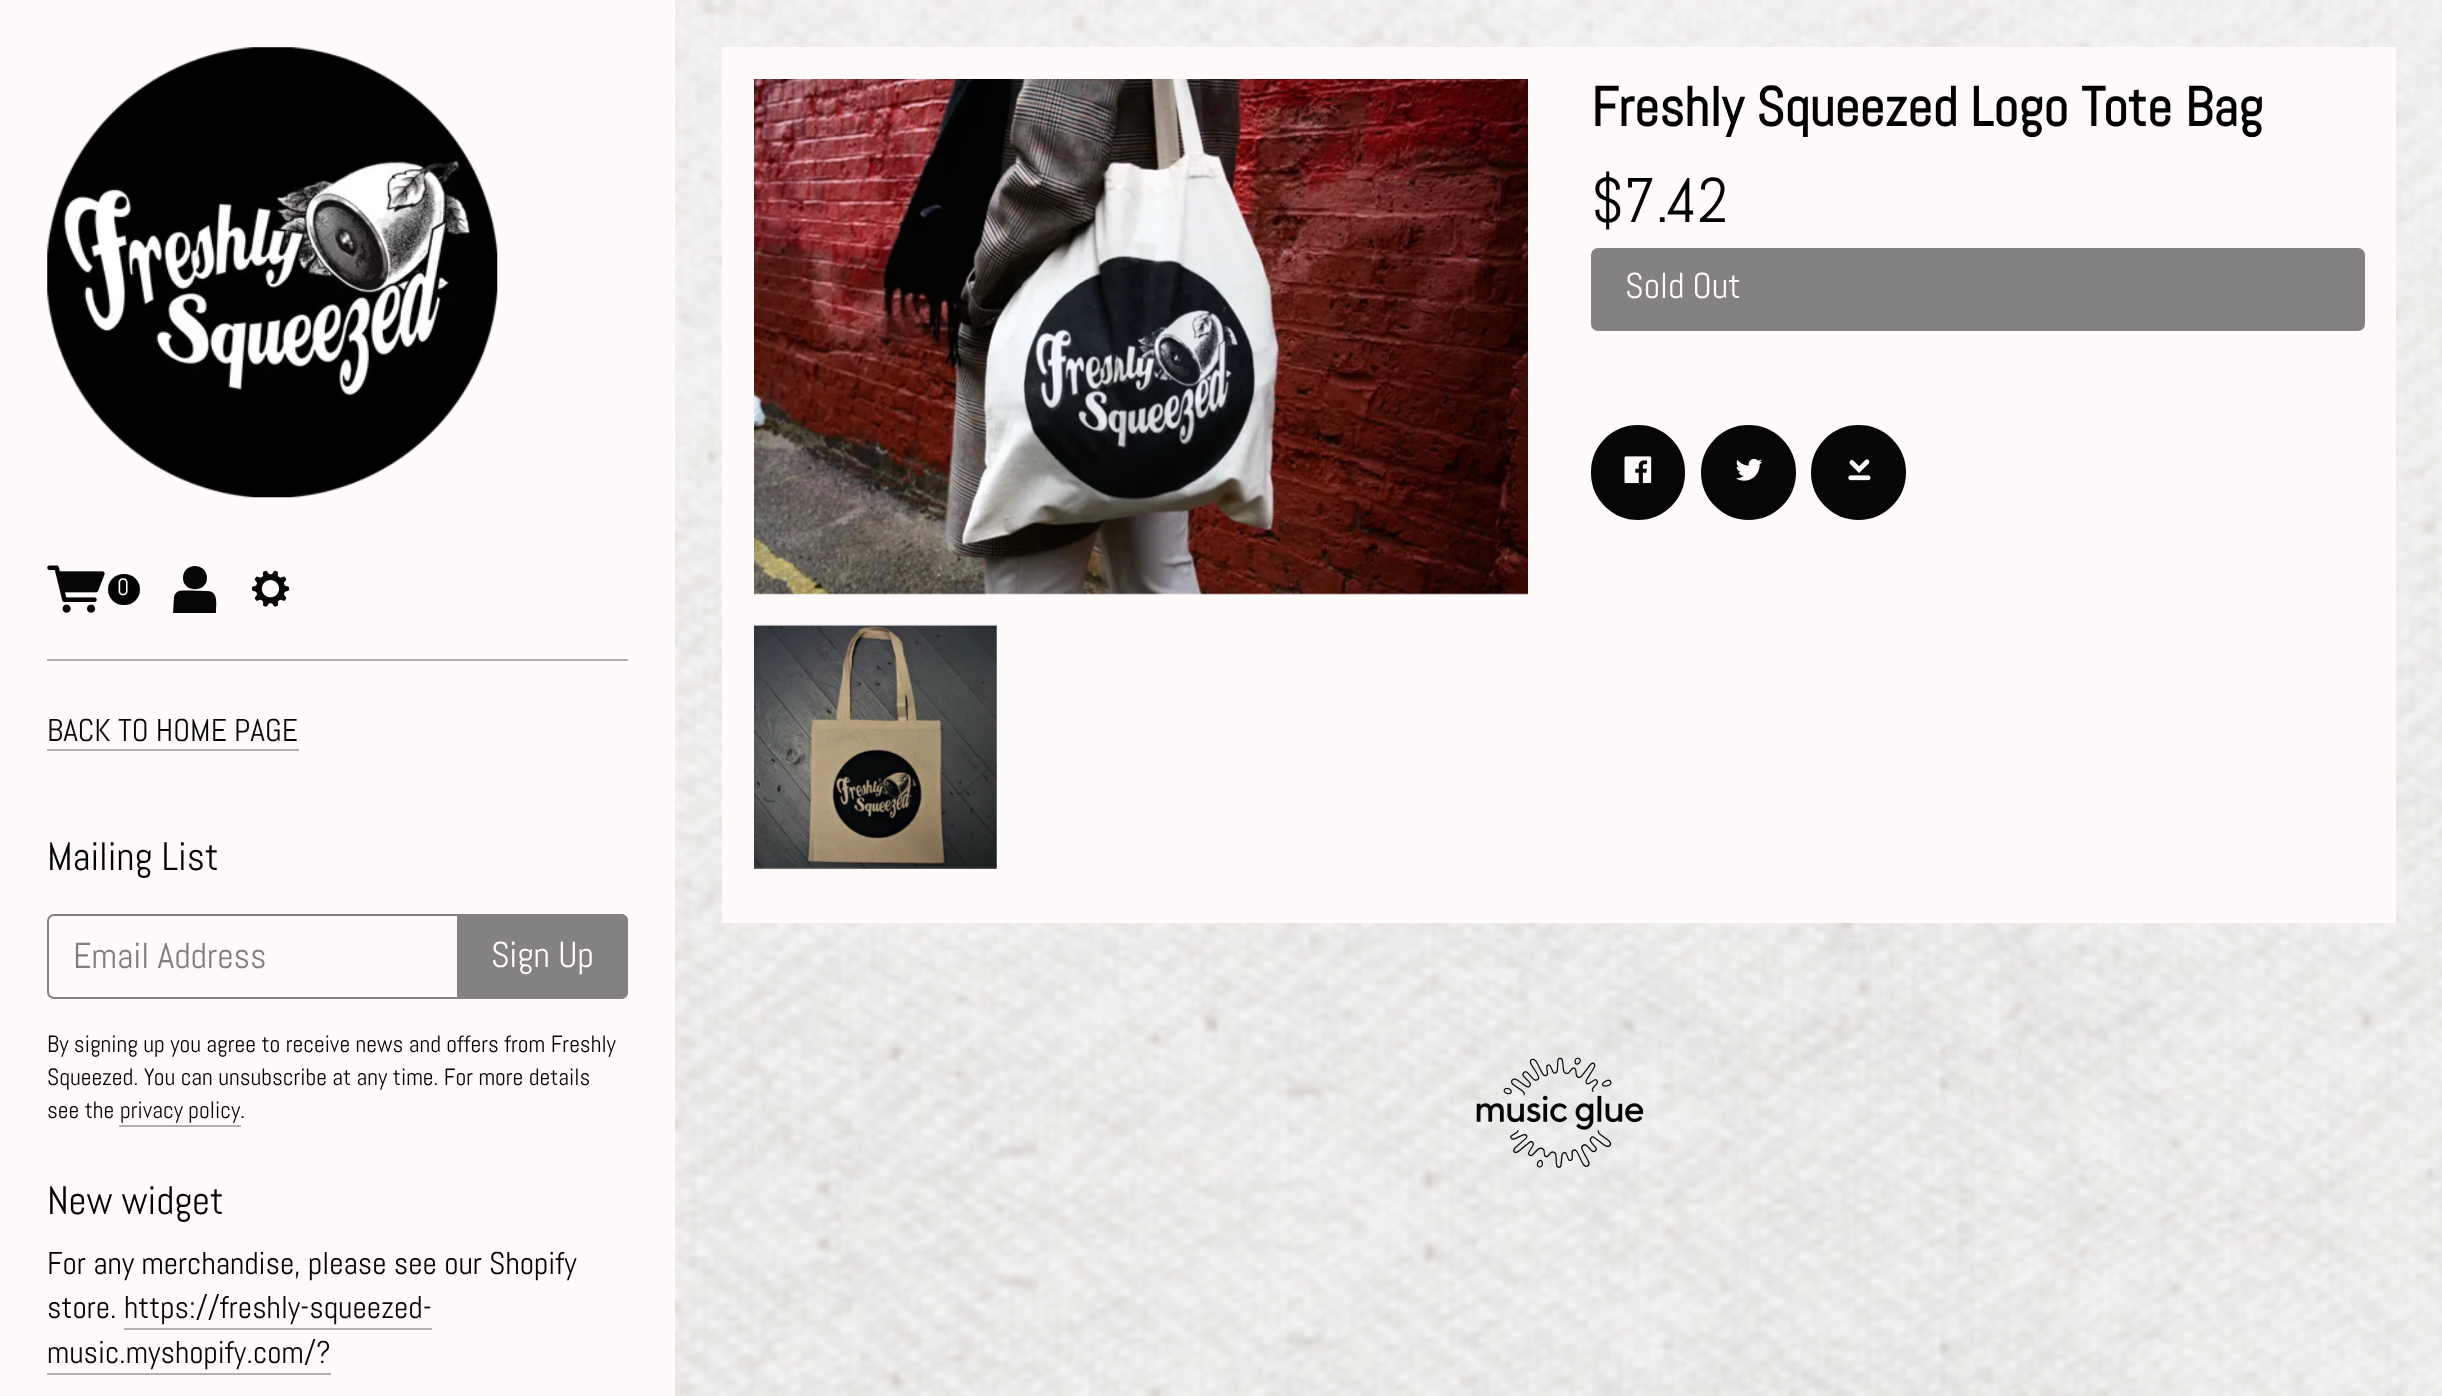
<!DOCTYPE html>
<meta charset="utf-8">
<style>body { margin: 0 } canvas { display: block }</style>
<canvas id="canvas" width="2442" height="1396"></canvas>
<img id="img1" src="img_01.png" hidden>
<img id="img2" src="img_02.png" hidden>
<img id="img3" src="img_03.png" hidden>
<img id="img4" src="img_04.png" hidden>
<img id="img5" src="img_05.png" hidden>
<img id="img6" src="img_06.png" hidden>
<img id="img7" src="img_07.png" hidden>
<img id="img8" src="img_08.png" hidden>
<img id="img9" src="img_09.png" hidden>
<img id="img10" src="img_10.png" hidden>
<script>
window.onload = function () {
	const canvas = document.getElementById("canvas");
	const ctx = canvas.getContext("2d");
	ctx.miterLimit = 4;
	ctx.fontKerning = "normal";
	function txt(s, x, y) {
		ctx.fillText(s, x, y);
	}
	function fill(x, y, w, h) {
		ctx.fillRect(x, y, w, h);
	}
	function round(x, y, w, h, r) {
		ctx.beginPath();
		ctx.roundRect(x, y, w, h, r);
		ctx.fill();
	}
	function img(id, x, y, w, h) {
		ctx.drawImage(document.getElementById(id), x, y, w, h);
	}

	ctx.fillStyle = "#FFFFFF";
	fill(0, 0, 2442, 1396);
	img("img1", 675, 0, 1767, 1396);
	ctx.fillStyle = "#FFFBFB";
	fill(722, 47, 1674, 876);
	img("img2", 754, 79, 774, 516);
	img("img3", 754, 624, 243, 245);
	ctx.fillStyle = "#838181";
	ctx.beginPath();
	ctx.roundRect(1592, 249, 772, 81, 6);
	ctx.fill();
	ctx.strokeStyle = "#838181";
	ctx.lineWidth = 2;
	ctx.stroke();
	ctx.fillStyle = "#060606";
	ctx.beginPath();
	ctx.roundRect(1592, 426, 92, 93, 46);
	ctx.fill();
	ctx.strokeStyle = "#060606";
	ctx.stroke();
	img("img4", 1624, 456, 28, 28);
	ctx.beginPath();
	ctx.arc(1748.5, 472.5, 46.5, 0, Math.PI * 2);
	ctx.fill();
	ctx.stroke();
	img("img5", 1735, 458, 28, 23);
	ctx.beginPath();
	ctx.arc(1858.5, 472.5, 46.5, 0, Math.PI * 2);
	ctx.fill();
	ctx.stroke();
	img("img6", 1848, 459, 23, 22);
	img("img7", 1476, 1057, 168, 111);
	ctx.fillStyle = "#FFFBFB";
	fill(0, 0, 675, 1396);
	img("img8", 47, 47, 451, 451);
	ctx.fillStyle = "#B3B0B0";
	fill(47, 659, 581, 2);
	img("img9", 47, 565, 58, 48);
	ctx.fillStyle = "#000000";
	round(108, 574, 32, 31, 15.5);
	ctx.fillStyle = "#060606";
	ctx.beginPath();
	ctx.moveTo(207, 591);
	ctx.bezierCurveTo(202, 591, 183, 590, 179, 591);
	ctx.bezierCurveTo(176, 592, 174, 595, 174, 597);
	ctx.lineTo(173, 613);
	ctx.lineTo(216, 613);
	ctx.bezierCurveTo(216, 605, 219, 591, 207, 591);
	ctx.closePath();
	ctx.moveTo(207, 578);
	ctx.bezierCurveTo(207, 593, 183, 593, 183, 578);
	ctx.bezierCurveTo(183, 562, 207, 562, 207, 578);
	ctx.closePath();
	ctx.fill();
	img("img10", 252, 570, 38, 37);
	ctx.fillStyle = "#B3B0B0";
	fill(47, 749, 252, 2);
	ctx.beginPath();
	ctx.roundRect(48, 915, 410, 83, [6, 0, 0, 6]);
	ctx.strokeStyle = "#838181";
	ctx.stroke();
	ctx.fillStyle = "#838181";
	ctx.beginPath();
	ctx.roundRect(459, 914, 169, 85, [0, 7, 7, 0]);
	ctx.fill();
	ctx.beginPath();
	ctx.moveTo(459, 914);
	ctx.lineTo(621, 914);
	ctx.bezierCurveTo(625, 914, 628, 917, 628, 920);
	ctx.lineTo(628, 992);
	ctx.bezierCurveTo(628, 996, 625, 999, 621, 999);
	ctx.lineTo(459, 999);
	ctx.closePath();
	ctx.moveTo(459, 916);
	ctx.lineTo(621, 916);
	ctx.bezierCurveTo(623, 916, 626, 918, 626, 920);
	ctx.lineTo(626, 992);
	ctx.bezierCurveTo(626, 995, 623, 997, 621, 997);
	ctx.lineTo(459, 997);
	ctx.closePath();
	ctx.fill("evenodd");
	ctx.fillStyle = "#B3B0B0";
	fill(119, 1125, 122, 2);
	fill(124, 1328, 308, 2);
	fill(47, 1373, 284, 2);
	ctx.font = "bold 55.1px Abel";
	ctx.fillStyle = "#000000";
	txt("Freshly Squeezed Logo Tote Bag", 1591, 126);
	ctx.font = "63px Abel";
	txt("$7.42", 1591, 222);
	ctx.font = "36px Abel";
	ctx.fillStyle = "#FFFBFB";
	txt("Sold Out", 1625, 298);
	ctx.font = "23.6px Abel";
	txt("0", 117, 595);
	ctx.font = "31.5px Abel";
	ctx.fillStyle = "#060606";
	txt("BACK TO HOME PAGE", 47, 741);
	ctx.font = "39.5px Abel";
	ctx.fillStyle = "#000000";
	txt("Mailing List", 47, 870);
	ctx.font = "36px Abel";
	ctx.fillStyle = "#807E7E";
	txt("Email Address", 73, 968);
	ctx.fillStyle = "#FFFBFB";
	txt("Sign Up", 491, 967);
	ctx.font = "23.6px Abel";
	ctx.fillStyle = "#000000";
	txt("By signing up you agree to receive news and offers from Freshly", 47, 1052);
	txt("Squeezed. You can unsubscribe at any time. For more details", 47, 1085);
	txt("see the", 47, 1118);
	ctx.fillStyle = "#060606";
	txt("privacy policy", 120, 1118);
	ctx.fillStyle = "#000000";
	txt(".", 240, 1118);
	ctx.font = "39.5px Abel";
	txt("New widget", 47, 1214);
	ctx.font = "31.5px Abel";
	txt("For any merchandise, please see our Shopify", 47, 1274);
	txt("store.", 47, 1318);
	ctx.fillStyle = "#060606";
	txt("https://freshly-squeezed-", 124, 1318);
	txt("music.myshopify.com/?", 47, 1363);
};
</script>
